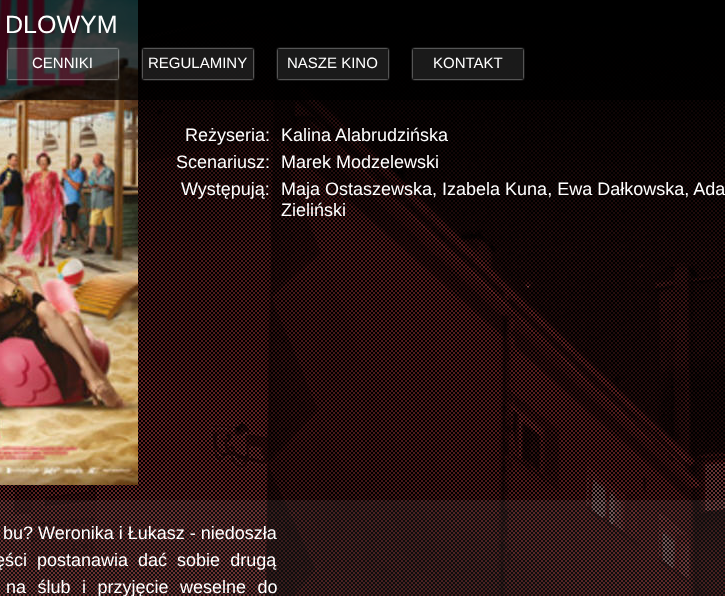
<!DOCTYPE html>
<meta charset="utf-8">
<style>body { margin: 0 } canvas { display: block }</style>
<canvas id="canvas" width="725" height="596"></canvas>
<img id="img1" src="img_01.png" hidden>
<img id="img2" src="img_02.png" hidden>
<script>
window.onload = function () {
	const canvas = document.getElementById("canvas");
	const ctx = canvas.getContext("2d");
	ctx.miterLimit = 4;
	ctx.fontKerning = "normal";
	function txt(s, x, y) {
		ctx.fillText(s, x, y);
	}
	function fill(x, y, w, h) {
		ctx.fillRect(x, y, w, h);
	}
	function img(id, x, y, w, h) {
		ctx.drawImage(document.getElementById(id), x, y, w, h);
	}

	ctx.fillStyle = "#FFFFFF";
	fill(0, 0, 725, 596);
	img("img1", 0, 0, 725, 596);
	img("img2", 0, 0, 138, 485);
	ctx.fillStyle = "rgba(0, 0, 0, 0.75)";
	fill(0, 0, 725, 100);
	ctx.save();
	ctx.beginPath();
	ctx.moveTo(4, 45);
	ctx.lineTo(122, 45);
	ctx.lineTo(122, 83);
	ctx.lineTo(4, 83);
	ctx.closePath();
	ctx.moveTo(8, 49);
	ctx.lineTo(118, 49);
	ctx.lineTo(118, 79);
	ctx.lineTo(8, 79);
	ctx.closePath();
	ctx.clip("evenodd");
	ctx.fillStyle = "#FFFFFF";
	ctx.filter = "blur(1px)";
	ctx.beginPath();
	ctx.rect(8, 49, 110, 30);
	ctx.fill();
	ctx.filter = "none";
	ctx.restore();
	ctx.fillStyle = "rgba(255, 255, 255, 0.1)";
	fill(8, 49, 110, 30);
	ctx.save();
	ctx.beginPath();
	ctx.moveTo(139, 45);
	ctx.lineTo(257, 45);
	ctx.lineTo(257, 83);
	ctx.lineTo(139, 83);
	ctx.closePath();
	ctx.moveTo(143, 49);
	ctx.lineTo(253, 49);
	ctx.lineTo(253, 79);
	ctx.lineTo(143, 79);
	ctx.closePath();
	ctx.clip("evenodd");
	ctx.fillStyle = "#FFFFFF";
	ctx.filter = "blur(1px)";
	ctx.beginPath();
	ctx.rect(143, 49, 110, 30);
	ctx.fill();
	ctx.filter = "none";
	ctx.restore();
	fill(143, 49, 110, 30);
	ctx.save();
	ctx.beginPath();
	ctx.moveTo(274, 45);
	ctx.lineTo(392, 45);
	ctx.lineTo(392, 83);
	ctx.lineTo(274, 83);
	ctx.closePath();
	ctx.moveTo(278, 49);
	ctx.lineTo(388, 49);
	ctx.lineTo(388, 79);
	ctx.lineTo(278, 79);
	ctx.closePath();
	ctx.clip("evenodd");
	ctx.fillStyle = "#FFFFFF";
	ctx.filter = "blur(1px)";
	ctx.beginPath();
	ctx.rect(278, 49, 110, 30);
	ctx.fill();
	ctx.filter = "none";
	ctx.restore();
	fill(278, 49, 110, 30);
	ctx.save();
	ctx.beginPath();
	ctx.moveTo(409, 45);
	ctx.lineTo(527, 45);
	ctx.lineTo(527, 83);
	ctx.lineTo(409, 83);
	ctx.closePath();
	ctx.moveTo(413, 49);
	ctx.lineTo(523, 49);
	ctx.lineTo(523, 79);
	ctx.lineTo(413, 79);
	ctx.closePath();
	ctx.clip("evenodd");
	ctx.fillStyle = "#FFFFFF";
	ctx.filter = "blur(1px)";
	ctx.beginPath();
	ctx.rect(413, 49, 110, 30);
	ctx.fill();
	ctx.filter = "none";
	ctx.restore();
	fill(413, 49, 110, 30);
	ctx.fillStyle = "rgba(255, 255, 255, 0.05)";
	fill(0, 500, 725, 96);
	ctx.font = "25px Liberation Sans";
	ctx.fillStyle = "#FFFFFF";
	txt("DLOWYM", 5, 33);
	ctx.font = "15px Liberation Sans";
	txt("CENNIKI", 32, 68);
	txt("REGULAMINY", 148, 68);
	txt("NASZE KINO", 287, 68);
	txt("KONTAKT", 433, 68);
	ctx.font = "18px Liberation Sans";
	txt("Reżyseria:", 185, 141);
	txt("Kalina Alabrudzińska", 281, 141);
	txt("Scenariusz:", 176, 168);
	txt("Marek Modzelewski", 281, 168);
	txt("Występują:", 181, 195);
	txt("Maja Ostaszewska, Izabela Kuna, Ewa Dałkowska, Ada", 281, 195);
	txt("Zieliński", 281, 216);
	txt("bu? Weronika i Łukasz - niedoszła", 3, 539);
	ctx.wordSpacing = "5px";
	txt("ęści postanawia dać sobie drugą", -5, 566);
	ctx.wordSpacing = "6.5px";
	txt("na ślub i przyjęcie weselne do", 6, 593);
};
</script>
